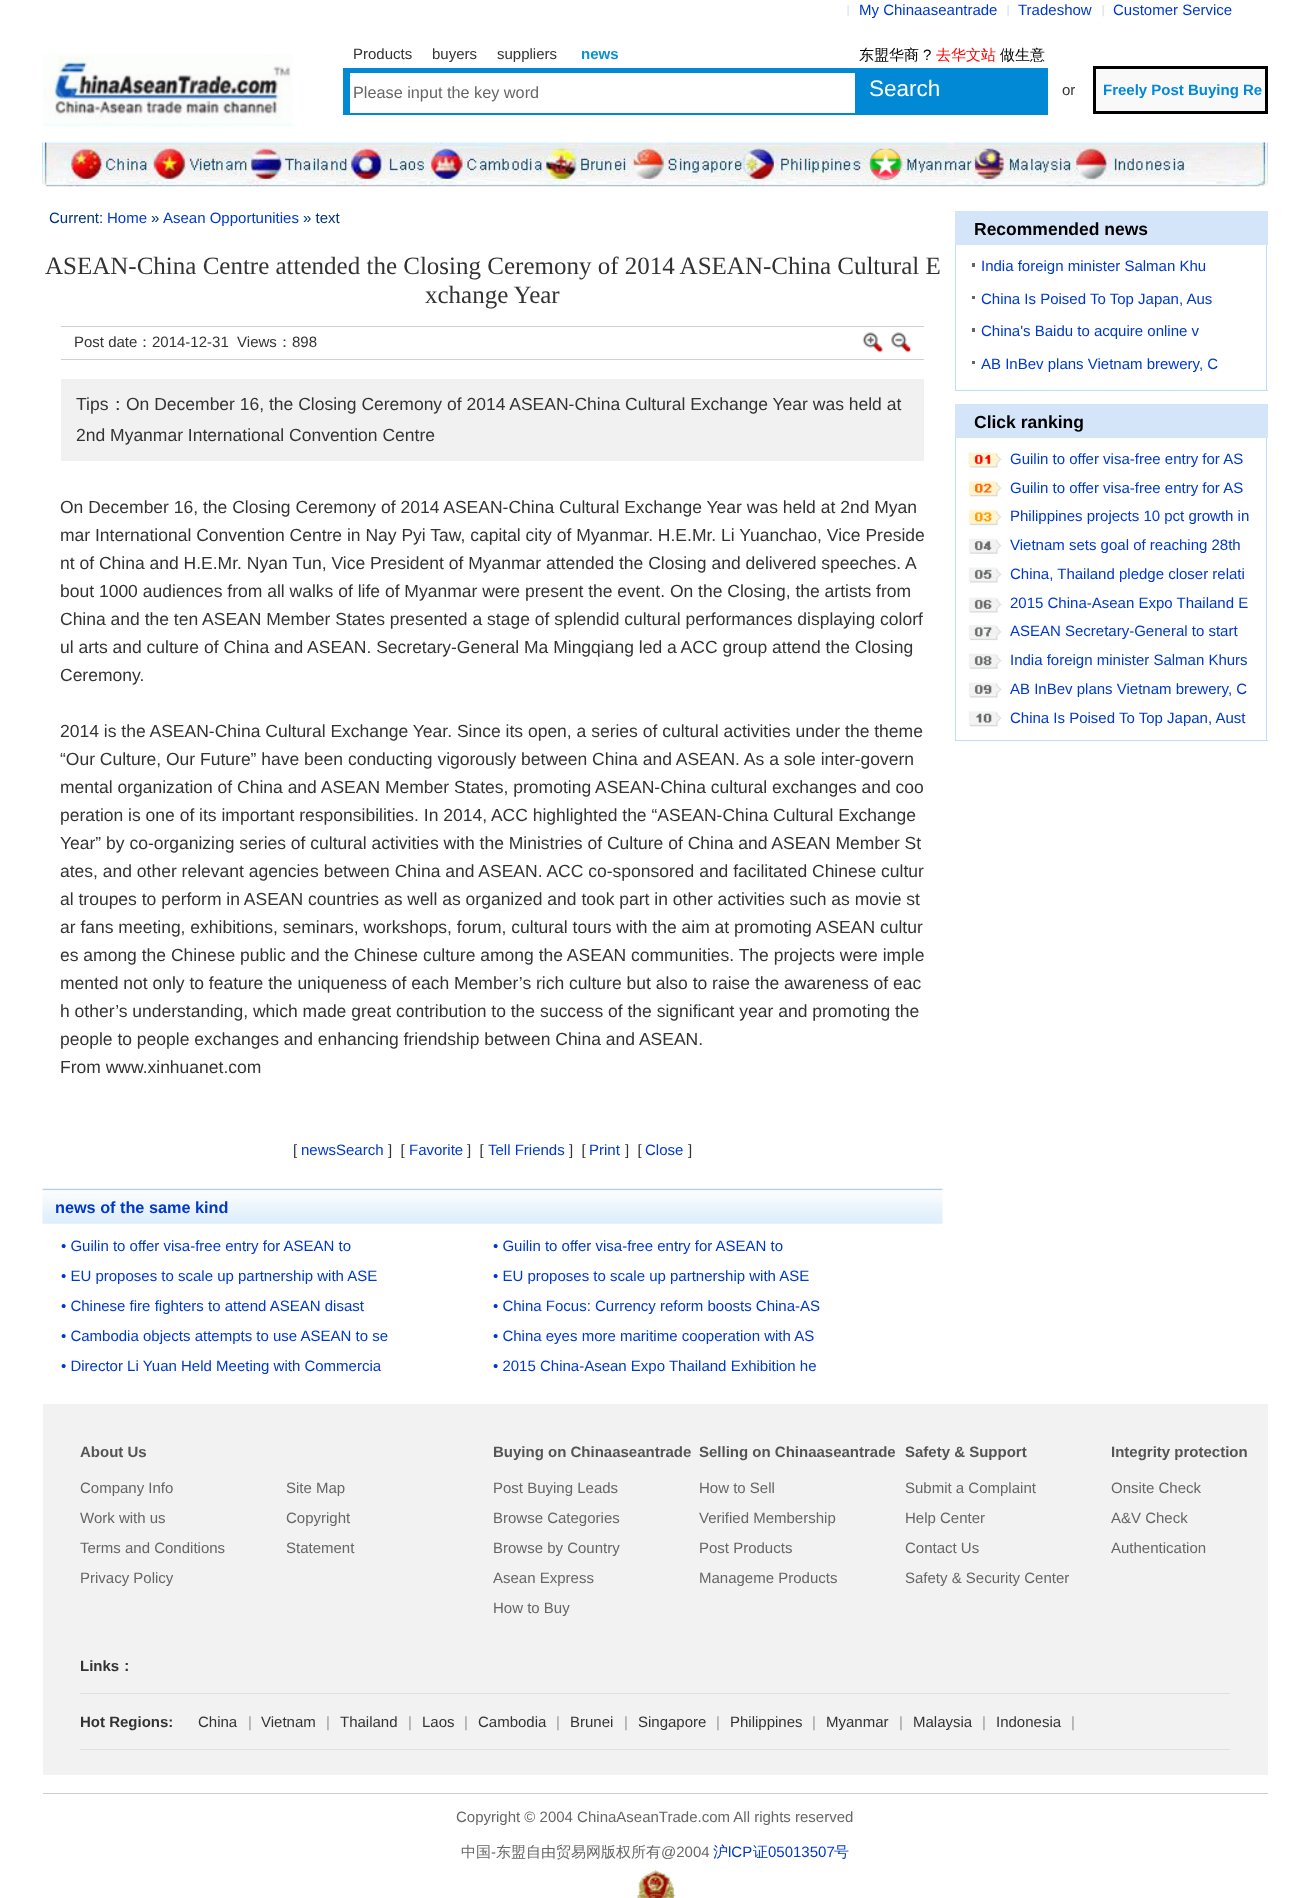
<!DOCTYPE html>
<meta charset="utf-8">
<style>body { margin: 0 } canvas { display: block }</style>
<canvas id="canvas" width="1309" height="1898"></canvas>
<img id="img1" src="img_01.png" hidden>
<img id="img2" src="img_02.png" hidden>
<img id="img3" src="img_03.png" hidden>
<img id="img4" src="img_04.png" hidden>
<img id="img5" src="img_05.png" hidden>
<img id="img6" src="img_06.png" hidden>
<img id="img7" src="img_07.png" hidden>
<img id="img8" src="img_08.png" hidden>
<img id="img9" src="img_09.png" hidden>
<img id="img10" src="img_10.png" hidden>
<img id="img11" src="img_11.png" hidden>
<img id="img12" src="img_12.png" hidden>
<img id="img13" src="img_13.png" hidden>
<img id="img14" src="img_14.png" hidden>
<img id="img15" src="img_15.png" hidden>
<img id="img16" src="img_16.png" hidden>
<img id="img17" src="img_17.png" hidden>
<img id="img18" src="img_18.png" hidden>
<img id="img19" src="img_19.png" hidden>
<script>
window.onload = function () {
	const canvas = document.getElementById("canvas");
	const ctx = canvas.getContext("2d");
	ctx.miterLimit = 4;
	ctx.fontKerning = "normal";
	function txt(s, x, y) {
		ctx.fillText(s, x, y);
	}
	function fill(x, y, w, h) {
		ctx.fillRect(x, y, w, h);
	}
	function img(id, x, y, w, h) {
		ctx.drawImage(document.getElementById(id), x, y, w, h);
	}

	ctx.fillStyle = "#FFFFFF";
	fill(0, 0, 1309, 1898);
	img("img1", 847, 5, 2, 12);
	img("img1", 1007, 5, 2, 12);
	img("img1", 1102, 5, 2, 12);
	img("img2", 42, 54, 251, 73);
	ctx.fillStyle = "#0189D5";
	fill(343, 68, 705, 47);
	ctx.fillStyle = "#FFFFFF";
	fill(350, 73, 505, 40);
	ctx.fillStyle = "#FAF9F9";
	ctx.beginPath();
	ctx.rect(1094.5, 67.5, 172, 45);
	ctx.fill();
	ctx.strokeStyle = "#000000";
	ctx.lineWidth = 3;
	ctx.stroke();
	img("img3", 42, 142, 1226, 45);
	img("img4", 67, 148, 85, 32);
	img("img5", 151, 148, 98, 32);
	img("img6", 248, 148, 101, 32);
	img("img7", 348, 148, 80, 32);
	img("img8", 427, 148, 117, 32);
	img("img9", 543, 148, 86, 32);
	img("img10", 628, 148, 115, 32);
	img("img11", 742, 148, 122, 32);
	img("img12", 863, 148, 110, 32);
	img("img13", 972, 148, 101, 32);
	img("img14", 1072, 148, 115, 32);
	ctx.fillStyle = "#D0D0D0";
	fill(61, 326, 863, 1);
	fill(61, 359, 863, 1);
	img("img15", 862, 332, 21, 21);
	img("img16", 891, 332, 21, 21);
	ctx.fillStyle = "#F1F1F1";
	fill(61, 379, 863, 82);
	img("img17", 42, 1188, 901, 36);
	ctx.fillStyle = "#D4E4F9";
	fill(955, 211, 313, 34);
	ctx.fillStyle = "#BDDEFD";
	fill(1266, 245, 1, 146);
	fill(955, 390, 313, 1);
	fill(955, 245, 1, 146);
	ctx.fillStyle = "#646464";
	fill(972, 263, 3, 4);
	fill(972, 296, 3, 3);
	fill(972, 328, 3, 4);
	fill(972, 361, 3, 3);
	ctx.fillStyle = "#D4E4F9";
	fill(955, 404, 313, 34);
	ctx.fillStyle = "#BDDEFD";
	fill(1266, 438, 1, 303);
	fill(955, 740, 313, 1);
	fill(955, 438, 1, 303);
	img("img18", 968, 452, 34, 275);
	ctx.fillStyle = "#F2F2F2";
	fill(43, 1404, 1225, 371);
	ctx.fillStyle = "#E0E0E0";
	fill(80, 1693, 1150, 1);
	fill(80, 1749, 1150, 1);
	ctx.fillStyle = "#CCCCCC";
	fill(43, 1793, 1225, 1);
	img("img19", 637, 1870, 39, 28);
	ctx.font = "15px Liberation Sans";
	ctx.fillStyle = "#0038C9";
	txt("My Chinaaseantrade", 859, 15);
	txt("Tradeshow", 1018, 15);
	txt("Customer Service", 1113, 15);
	ctx.fillStyle = "#333333";
	txt("Products", 353, 59);
	txt("buyers", 432, 59);
	txt("suppliers", 497, 59);
	ctx.font = "bold 15px Liberation Sans";
	ctx.fillStyle = "#0A91D5";
	txt("news", 581, 59);
	ctx.font = "16.25px Liberation Sans";
	ctx.fillStyle = "#666666";
	txt("Please input the key word", 353, 98);
	ctx.font = "22.5px Liberation Sans";
	ctx.fillStyle = "#FFFFFF";
	txt("Search", 869, 96);
	ctx.font = "500 15px WenQuanYi Zen Hei";
	ctx.fillStyle = "#000000";
	txt("东盟华商", 859, 60);
	ctx.font = "15px Liberation Sans";
	txt("?", 923, 60);
	ctx.font = "500 15px WenQuanYi Zen Hei";
	ctx.fillStyle = "#FF0000";
	txt("去华文站", 936, 60);
	ctx.fillStyle = "#000000";
	txt("做生意", 1000, 60);
	ctx.font = "15px Liberation Sans";
	ctx.fillStyle = "#333333";
	txt("or", 1062, 95);
	ctx.font = "bold 15px Liberation Sans";
	ctx.fillStyle = "#0189D5";
	txt("Freely Post Buying Re", 1103, 95);
	ctx.font = "15px Liberation Sans";
	ctx.fillStyle = "#003278";
	txt("Current:", 49, 223);
	ctx.fillStyle = "#0038C9";
	txt("Home", 107, 223);
	ctx.fillStyle = "#003278";
	txt("»", 151, 223);
	ctx.fillStyle = "#0038C9";
	txt("Asean Opportunities", 163, 223);
	ctx.fillStyle = "#003278";
	txt("» text", 303, 223);
	ctx.font = "25px Liberation Serif";
	ctx.fillStyle = "#333333";
	txt("ASEAN-China Centre attended the Closing Ceremony of 2014 ASEAN-China Cultural E", 45, 274);
	txt("xchange Year", 425, 303);
	ctx.font = "15px Liberation Sans";
	txt("Post date", 74, 347);
	ctx.font = "500 15px WenQuanYi Zen Hei";
	txt("：", 137, 347);
	ctx.font = "15px Liberation Sans";
	txt("2014-12-31  Views", 152, 347);
	ctx.font = "500 15px WenQuanYi Zen Hei";
	txt("：", 277, 347);
	ctx.font = "15px Liberation Sans";
	txt("898", 292, 347);
	ctx.font = "17.5px Liberation Sans";
	txt("Tips", 76, 410);
	ctx.font = "500 17.5px WenQuanYi Zen Hei";
	txt("：", 109, 410);
	ctx.font = "17.5px Liberation Sans";
	txt("On December 16, the Closing Ceremony of 2014 ASEAN-China Cultural Exchange Year was held at", 126, 410);
	txt("2nd Myanmar International Convention Centre", 76, 441);
	txt("On December 16, the Closing Ceremony of 2014 ASEAN-China Cultural Exchange Year was held at 2nd Myan", 60, 513);
	txt("mar International Convention Centre in Nay Pyi Taw, capital city of Myanmar. H.E.Mr. Li Yuanchao, Vice Preside", 60, 541);
	txt("nt of China and H.E.Mr. Nyan Tun, Vice President of Myanmar attended the Closing and delivered speeches. A", 60, 569);
	txt("bout 1000 audiences from all walks of life of Myanmar were present the event. On the Closing, the artists from", 60, 597);
	txt("China and the ten ASEAN Member States presented a stage of splendid cultural performances displaying colorf", 60, 625);
	txt("ul arts and culture of China and ASEAN. Secretary-General Ma Mingqiang led a ACC group attend the Closing", 60, 653);
	txt("Ceremony.", 60, 681);
	txt("2014 is the ASEAN-China Cultural Exchange Year. Since its open, a series of cultural activities under the theme", 60, 737);
	txt("“Our Culture, Our Future” have been conducting vigorously between China and ASEAN. As a sole inter-govern", 60, 765);
	txt("mental organization of China and ASEAN Member States, promoting ASEAN-China cultural exchanges and coo", 60, 793);
	txt("peration is one of its important responsibilities. In 2014, ACC highlighted the “ASEAN-China Cultural Exchange", 60, 821);
	txt("Year” by co-organizing series of cultural activities with the Ministries of Culture of China and ASEAN Member St", 60, 849);
	txt("ates, and other relevant agencies between China and ASEAN. ACC co-sponsored and facilitated Chinese cultur", 60, 877);
	txt("al troupes to perform in ASEAN countries as well as organized and took part in other activities such as movie st", 60, 905);
	txt("ar fans meeting, exhibitions, seminars, workshops, forum, cultural tours with the aim at promoting ASEAN cultur", 60, 933);
	txt("es among the Chinese public and the Chinese culture among the ASEAN communities. The projects were imple", 60, 961);
	txt("mented not only to feature the uniqueness of each Member’s rich culture but also to raise the awareness of eac", 60, 989);
	txt("h other’s understanding, which made great contribution to the success of the significant year and promoting the", 60, 1017);
	txt("people to people exchanges and enhancing friendship between China and ASEAN.", 60, 1045);
	txt("From www.xinhuanet.com", 60, 1073);
	ctx.font = "15px Liberation Sans";
	txt("[", 293, 1155);
	ctx.fillStyle = "#0038C9";
	txt("newsSearch", 301, 1155);
	ctx.fillStyle = "#333333";
	txt("]  [", 388, 1155);
	ctx.fillStyle = "#0038C9";
	txt("Favorite", 409, 1155);
	ctx.fillStyle = "#333333";
	txt("]  [", 467, 1155);
	ctx.fillStyle = "#0038C9";
	txt("Tell Friends", 488, 1155);
	ctx.fillStyle = "#333333";
	txt("]  [", 569, 1155);
	ctx.fillStyle = "#0038C9";
	txt("Print", 589, 1155);
	ctx.fillStyle = "#333333";
	txt("]  [", 625, 1155);
	ctx.fillStyle = "#0038C9";
	txt("Close", 645, 1155);
	ctx.fillStyle = "#333333";
	txt("]", 688, 1155);
	ctx.font = "bold 16.25px Liberation Sans";
	ctx.fillStyle = "#0038C9";
	txt("news of the same kind", 55, 1213);
	ctx.font = "15px Liberation Sans";
	txt("• Guilin to offer visa-free entry for ASEAN to", 61, 1251);
	txt("• Guilin to offer visa-free entry for ASEAN to", 493, 1251);
	txt("• EU proposes to scale up partnership with ASE", 61, 1281);
	txt("• EU proposes to scale up partnership with ASE", 493, 1281);
	txt("• Chinese fire fighters to attend ASEAN disast", 61, 1311);
	txt("• China Focus: Currency reform boosts China-AS", 493, 1311);
	txt("• Cambodia objects attempts to use ASEAN to se", 61, 1341);
	txt("• China eyes more maritime cooperation with AS", 493, 1341);
	txt("• Director Li Yuan Held Meeting with Commercia", 61, 1371);
	txt("• 2015 China-Asean Expo Thailand Exhibition he", 493, 1371);
	ctx.font = "bold 17.5px Liberation Sans";
	ctx.fillStyle = "#000000";
	txt("Recommended news", 974, 235);
	ctx.font = "15px Liberation Sans";
	ctx.fillStyle = "#0038C9";
	txt("India foreign minister Salman Khu", 981, 271);
	txt("China Is Poised To Top Japan, Aus", 981, 304);
	txt("China's Baidu to acquire online v", 981, 336);
	txt("AB InBev plans Vietnam brewery, C", 981, 369);
	ctx.font = "bold 17.5px Liberation Sans";
	ctx.fillStyle = "#000000";
	txt("Click ranking", 974, 428);
	ctx.font = "15px Liberation Sans";
	ctx.fillStyle = "#0038C9";
	txt("Guilin to offer visa-free entry for AS", 1010, 464);
	txt("Guilin to offer visa-free entry for AS", 1010, 493);
	txt("Philippines projects 10 pct growth in", 1010, 521);
	txt("Vietnam sets goal of reaching 28th", 1010, 550);
	txt("China, Thailand pledge closer relati", 1010, 579);
	txt("2015 China-Asean Expo Thailand E", 1010, 608);
	txt("ASEAN Secretary-General to start", 1010, 636);
	txt("India foreign minister Salman Khurs", 1010, 665);
	txt("AB InBev plans Vietnam brewery, C", 1010, 694);
	txt("China Is Poised To Top Japan, Aust", 1010, 723);
	ctx.font = "bold 15px Liberation Sans";
	ctx.fillStyle = "#555555";
	txt("About Us", 80, 1457);
	ctx.font = "15px Liberation Sans";
	ctx.fillStyle = "#666666";
	txt("Company Info", 80, 1493);
	txt("Work with us", 80, 1523);
	txt("Terms and Conditions", 80, 1553);
	txt("Privacy Policy", 80, 1583);
	txt("Site Map", 286, 1493);
	txt("Copyright", 286, 1523);
	txt("Statement", 286, 1553);
	ctx.font = "bold 15px Liberation Sans";
	ctx.fillStyle = "#555555";
	txt("Buying on Chinaaseantrade", 493, 1457);
	ctx.font = "15px Liberation Sans";
	ctx.fillStyle = "#666666";
	txt("Post Buying Leads", 493, 1493);
	txt("Browse Categories", 493, 1523);
	txt("Browse by Country", 493, 1553);
	txt("Asean Express", 493, 1583);
	txt("How to Buy", 493, 1613);
	ctx.font = "bold 15px Liberation Sans";
	ctx.fillStyle = "#555555";
	txt("Selling on Chinaaseantrade", 699, 1457);
	ctx.font = "15px Liberation Sans";
	ctx.fillStyle = "#666666";
	txt("How to Sell", 699, 1493);
	txt("Verified Membership", 699, 1523);
	txt("Post Products", 699, 1553);
	txt("Manageme Products", 699, 1583);
	ctx.font = "bold 15px Liberation Sans";
	ctx.fillStyle = "#555555";
	txt("Safety & Support", 905, 1457);
	ctx.font = "15px Liberation Sans";
	ctx.fillStyle = "#666666";
	txt("Submit a Complaint", 905, 1493);
	txt("Help Center", 905, 1523);
	txt("Contact Us", 905, 1553);
	txt("Safety & Security Center", 905, 1583);
	ctx.font = "bold 15px Liberation Sans";
	ctx.fillStyle = "#555555";
	txt("Integrity protection", 1111, 1457);
	ctx.font = "15px Liberation Sans";
	ctx.fillStyle = "#666666";
	txt("Onsite Check", 1111, 1493);
	txt("A&V Check", 1111, 1523);
	txt("Authentication", 1111, 1553);
	ctx.font = "bold 15px Liberation Sans";
	ctx.fillStyle = "#333333";
	txt("Links", 80, 1671);
	ctx.font = "bold 15px WenQuanYi Zen Hei";
	txt("：", 119, 1671);
	ctx.font = "bold 15px Liberation Sans";
	txt("Hot Regions:", 80, 1727);
	ctx.font = "15px Liberation Sans";
	txt("China", 198, 1727);
	ctx.fillStyle = "#999999";
	txt("|", 248, 1727);
	ctx.fillStyle = "#333333";
	txt("Vietnam", 261, 1727);
	ctx.fillStyle = "#999999";
	txt("|", 326, 1727);
	ctx.fillStyle = "#333333";
	txt("Thailand", 340, 1727);
	ctx.fillStyle = "#999999";
	txt("|", 408, 1727);
	ctx.fillStyle = "#333333";
	txt("Laos", 422, 1727);
	ctx.fillStyle = "#999999";
	txt("|", 464, 1727);
	ctx.fillStyle = "#333333";
	txt("Cambodia", 478, 1727);
	ctx.fillStyle = "#999999";
	txt("|", 556, 1727);
	ctx.fillStyle = "#333333";
	txt("Brunei", 570, 1727);
	ctx.fillStyle = "#999999";
	txt("|", 624, 1727);
	ctx.fillStyle = "#333333";
	txt("Singapore", 638, 1727);
	ctx.fillStyle = "#999999";
	txt("|", 716, 1727);
	ctx.fillStyle = "#333333";
	txt("Philippines", 730, 1727);
	ctx.fillStyle = "#999999";
	txt("|", 812, 1727);
	ctx.fillStyle = "#333333";
	txt("Myanmar", 826, 1727);
	ctx.fillStyle = "#999999";
	txt("|", 899, 1727);
	ctx.fillStyle = "#333333";
	txt("Malaysia", 913, 1727);
	ctx.fillStyle = "#999999";
	txt("|", 982, 1727);
	ctx.fillStyle = "#333333";
	txt("Indonesia", 996, 1727);
	ctx.fillStyle = "#999999";
	txt("|", 1071, 1727);
	ctx.fillStyle = "#666666";
	txt("Copyright © 2004 ChinaAseanTrade.com All rights reserved", 456, 1822);
	ctx.font = "500 15px WenQuanYi Zen Hei";
	txt("中国", 461, 1857);
	ctx.font = "15px Liberation Sans";
	txt("-", 491, 1857);
	ctx.font = "500 15px WenQuanYi Zen Hei";
	txt("东盟自由贸易网版权所有", 496, 1857);
	ctx.font = "15px Liberation Sans";
	txt("@2004", 661, 1857);
	ctx.font = "500 15px WenQuanYi Zen Hei";
	ctx.fillStyle = "#0038C9";
	txt("沪", 713, 1857);
	ctx.font = "15px Liberation Sans";
	txt("lCP", 728, 1857);
	ctx.font = "500 15px WenQuanYi Zen Hei";
	txt("证", 753, 1857);
	ctx.font = "15px Liberation Sans";
	txt("05013507", 768, 1857);
	ctx.font = "500 15px WenQuanYi Zen Hei";
	txt("号", 834, 1857);
};
</script>
